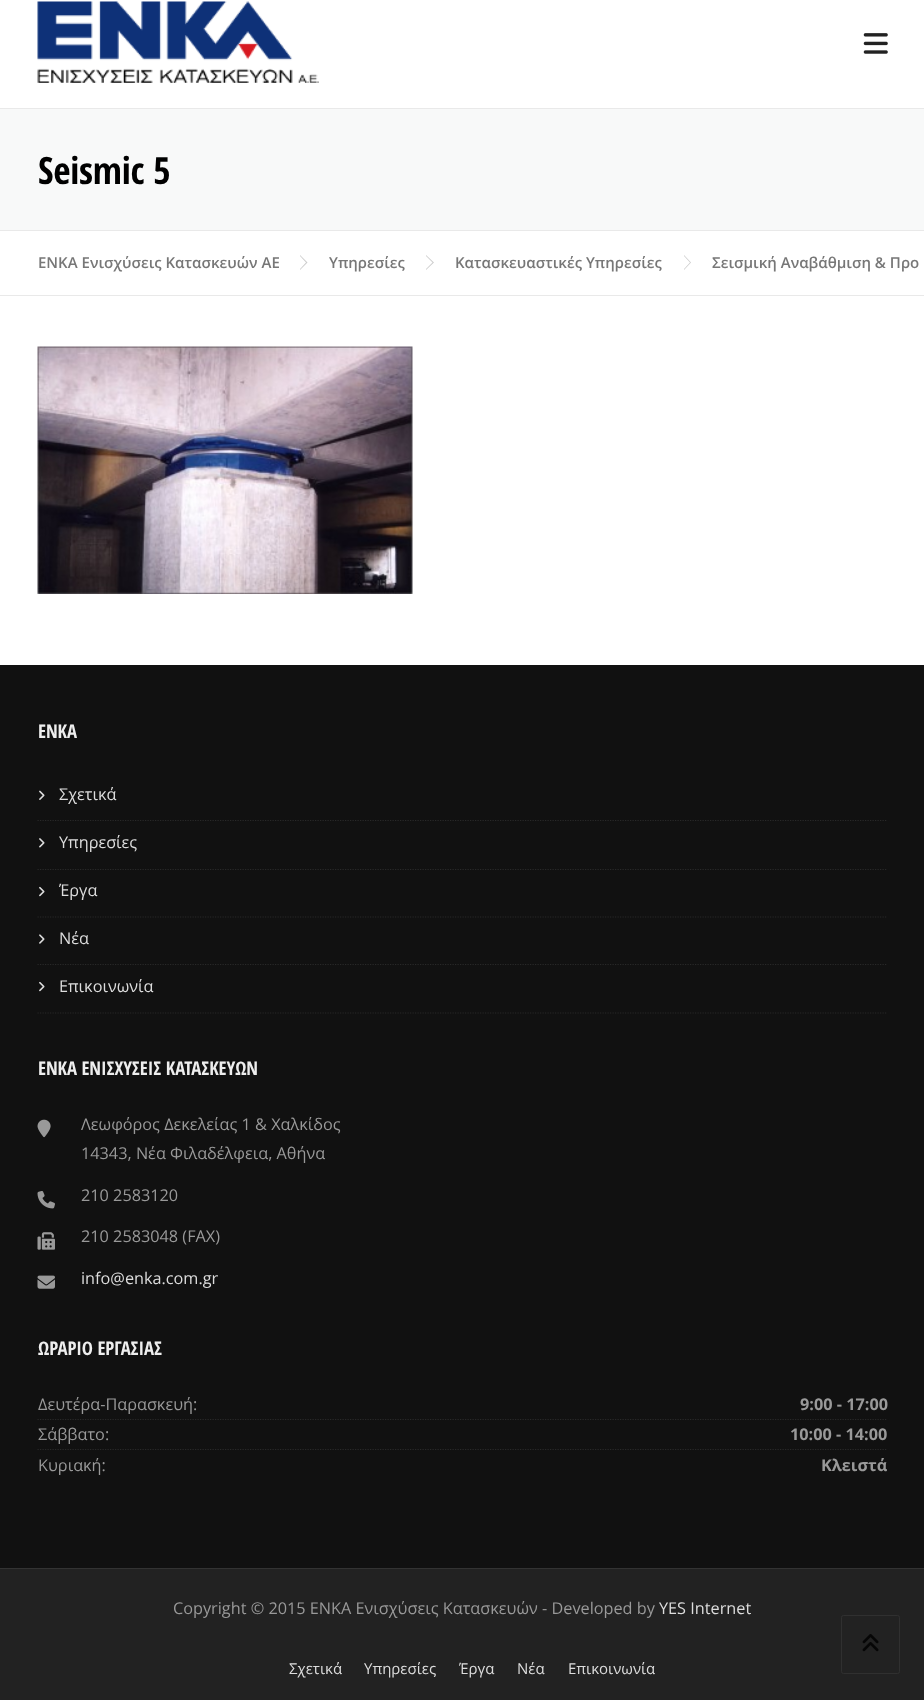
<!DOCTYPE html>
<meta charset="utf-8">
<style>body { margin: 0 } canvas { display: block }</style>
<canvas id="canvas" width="924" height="1700"></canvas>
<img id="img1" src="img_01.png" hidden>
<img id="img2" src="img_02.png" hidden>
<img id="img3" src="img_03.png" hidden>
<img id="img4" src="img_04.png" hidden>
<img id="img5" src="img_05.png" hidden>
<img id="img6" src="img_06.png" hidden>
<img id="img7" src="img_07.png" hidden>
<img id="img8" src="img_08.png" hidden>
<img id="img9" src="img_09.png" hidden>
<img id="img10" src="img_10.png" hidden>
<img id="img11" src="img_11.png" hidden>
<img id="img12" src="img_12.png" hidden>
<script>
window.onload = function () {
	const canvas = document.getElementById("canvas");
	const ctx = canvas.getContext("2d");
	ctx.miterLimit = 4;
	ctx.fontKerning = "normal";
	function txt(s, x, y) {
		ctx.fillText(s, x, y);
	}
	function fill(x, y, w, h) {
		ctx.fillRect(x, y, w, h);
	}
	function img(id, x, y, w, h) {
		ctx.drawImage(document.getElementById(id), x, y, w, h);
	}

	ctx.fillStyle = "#FFFFFF";
	fill(0, 0, 924, 1700);
	img("img1", 37, 1, 282, 82);
	img("img2", 863, 33, 25, 21);
	ctx.fillStyle = "#F8F9F9";
	fill(0, 109, 924, 121);
	ctx.fillStyle = "#E9E9E9";
	fill(0, 108, 924, 1);
	fill(0, 230, 924, 1);
	fill(0, 295, 924, 1);
	ctx.fillStyle = "#CCCCCC";
	ctx.beginPath();
	ctx.moveTo(300, 270);
	ctx.lineTo(300, 255);
	ctx.lineTo(307.5, 262.5);
	ctx.closePath();
	ctx.fill();
	ctx.fillStyle = "#FFFFFF";
	ctx.beginPath();
	ctx.moveTo(300, 269);
	ctx.lineTo(300, 256);
	ctx.lineTo(306, 262.5);
	ctx.closePath();
	ctx.fill();
	ctx.fillStyle = "#CCCCCC";
	ctx.beginPath();
	ctx.moveTo(426, 270);
	ctx.lineTo(426, 255);
	ctx.lineTo(434, 262.5);
	ctx.closePath();
	ctx.fill();
	ctx.fillStyle = "#FFFFFF";
	ctx.beginPath();
	ctx.moveTo(426, 269);
	ctx.lineTo(426, 256);
	ctx.lineTo(432.5, 262.5);
	ctx.closePath();
	ctx.fill();
	ctx.fillStyle = "#CCCCCC";
	ctx.beginPath();
	ctx.moveTo(684, 270);
	ctx.lineTo(684, 255);
	ctx.lineTo(691, 262.5);
	ctx.closePath();
	ctx.fill();
	ctx.fillStyle = "#FFFFFF";
	ctx.beginPath();
	ctx.moveTo(684, 269);
	ctx.lineTo(684, 256);
	ctx.lineTo(690, 262.5);
	ctx.closePath();
	ctx.fill();
	img("img3", 37, 346, 376, 248);
	ctx.fillStyle = "#111111";
	fill(0, 665, 924, 903);
	ctx.beginPath();
	ctx.moveTo(37.5, 820.5);
	ctx.lineTo(887.5, 820.5);
	ctx.strokeStyle = "#292929";
	ctx.lineWidth = 1.2;
	ctx.setLineDash([1.25, 1.25]);
	ctx.stroke();
	img("img4", 39, 790, 6, 10);
	ctx.beginPath();
	ctx.moveTo(37.5, 869.5);
	ctx.lineTo(887.5, 869.5);
	ctx.stroke();
	img("img5", 39, 838, 6, 10);
	ctx.beginPath();
	ctx.moveTo(37.5, 917);
	ctx.lineTo(887.5, 917);
	ctx.stroke();
	img("img6", 39, 886, 6, 11);
	ctx.beginPath();
	ctx.moveTo(37.5, 964.5);
	ctx.lineTo(887.5, 964.5);
	ctx.stroke();
	img("img7", 39, 934, 6, 10);
	ctx.beginPath();
	ctx.moveTo(37.5, 1013);
	ctx.lineTo(887.5, 1013);
	ctx.stroke();
	img("img6", 39, 981, 6, 11);
	img("img8", 37, 1119, 14, 19);
	img("img9", 37, 1191, 18, 18);
	img("img10", 37, 1232, 18, 18);
	img("img11", 37, 1275, 18, 14);
	ctx.beginPath();
	ctx.moveTo(37.5, 1419.5);
	ctx.lineTo(887.5, 1419.5);
	ctx.stroke();
	ctx.beginPath();
	ctx.moveTo(37.5, 1449.5);
	ctx.lineTo(887.5, 1449.5);
	ctx.stroke();
	ctx.fillStyle = "#222222";
	fill(0, 1569, 924, 131);
	ctx.fillStyle = "#333333";
	fill(0, 1568, 924, 1);
	ctx.beginPath();
	ctx.roundRect(841.5, 1615.5, 58, 58, 2);
	ctx.strokeStyle = "#303030";
	ctx.lineWidth = 1;
	ctx.setLineDash([]);
	ctx.stroke();
	img("img12", 862, 1634, 17, 18);
	ctx.letterSpacing = "-0.25px";
	ctx.font = "bold 37.5px Open Sans Condensed";
	ctx.fillStyle = "#000000";
	txt("Seismic 5", 38, 184);
	ctx.letterSpacing = "0px";
	ctx.font = "600 15px Open Sans";
	ctx.fillStyle = "#777777";
	txt("ENKA Ενισχύσεις Κατασκευών ΑΕ", 38, 268);
	txt("Υπηρεσίες", 329, 268);
	txt("Κατασκευαστικές Υπηρεσίες", 455, 268);
	txt("Σεισμική Αναβάθμιση & Προ", 712, 268);
	ctx.letterSpacing = "-0.1px";
	ctx.font = "bold 18.75px Open Sans Condensed";
	ctx.fillStyle = "#EEEEEE";
	txt("ENKA", 38, 738);
	ctx.letterSpacing = "0px";
	ctx.font = "16.25px Open Sans";
	ctx.fillStyle = "#DDDDDD";
	txt("Σχετικά", 59, 800);
	txt("Υπηρεσίες", 59, 848);
	txt("Έργα", 59, 896);
	txt("Νέα", 59, 944);
	txt("Επικοινωνία", 59, 992);
	ctx.letterSpacing = "-0.1px";
	ctx.font = "bold 18.75px Open Sans Condensed";
	ctx.fillStyle = "#EEEEEE";
	txt("ΕΝΚΑ ΕΝΙΣΧΥΣΕΙΣ ΚΑΤΑΣΚΕΥΩΝ", 38, 1075);
	ctx.letterSpacing = "0px";
	ctx.font = "16.25px Open Sans";
	ctx.fillStyle = "#999999";
	txt("Λεωφόρος Δεκελείας 1 & Χαλκίδος", 81, 1130);
	txt("14343, Νέα Φιλαδέλφεια, Αθήνα", 81, 1159);
	txt("210 2583120", 81, 1201);
	txt("210 2583048 (FAX)", 81, 1242);
	ctx.fillStyle = "#DDDDDD";
	txt("info@enka.com.gr", 81, 1284);
	ctx.letterSpacing = "-0.1px";
	ctx.font = "bold 18.75px Open Sans Condensed";
	ctx.fillStyle = "#EEEEEE";
	txt("ΩΡΑΡΙΟ ΕΡΓΑΣΙΑΣ", 38, 1355);
	ctx.letterSpacing = "0px";
	ctx.font = "16.25px Open Sans";
	ctx.fillStyle = "#999999";
	txt("Δευτέρα-Παρασκευή:", 38, 1410);
	ctx.font = "bold 16.25px Open Sans";
	txt("9:00 - 17:00", 800, 1410);
	ctx.font = "16.25px Open Sans";
	txt("Σάββατο:", 38, 1440);
	ctx.font = "bold 16.25px Open Sans";
	txt("10:00 - 14:00", 790, 1440);
	ctx.font = "16.25px Open Sans";
	txt("Κυριακή:", 38, 1471);
	ctx.font = "bold 16.25px Open Sans";
	txt("Κλειστά", 821, 1471);
	ctx.font = "16.25px Open Sans";
	txt("Copyright © 2015 ENKA Ενισχύσεις Κατασκευών - Developed by", 173, 1614);
	ctx.fillStyle = "#DDDDDD";
	txt("YES Internet", 659, 1614);
	ctx.font = "15px Open Sans";
	txt("Σχετικά", 289, 1674);
	txt("Υπηρεσίες", 364, 1674);
	txt("Έργα", 459, 1674);
	txt("Νέα", 517, 1674);
	txt("Επικοινωνία", 568, 1674);
};
</script>
